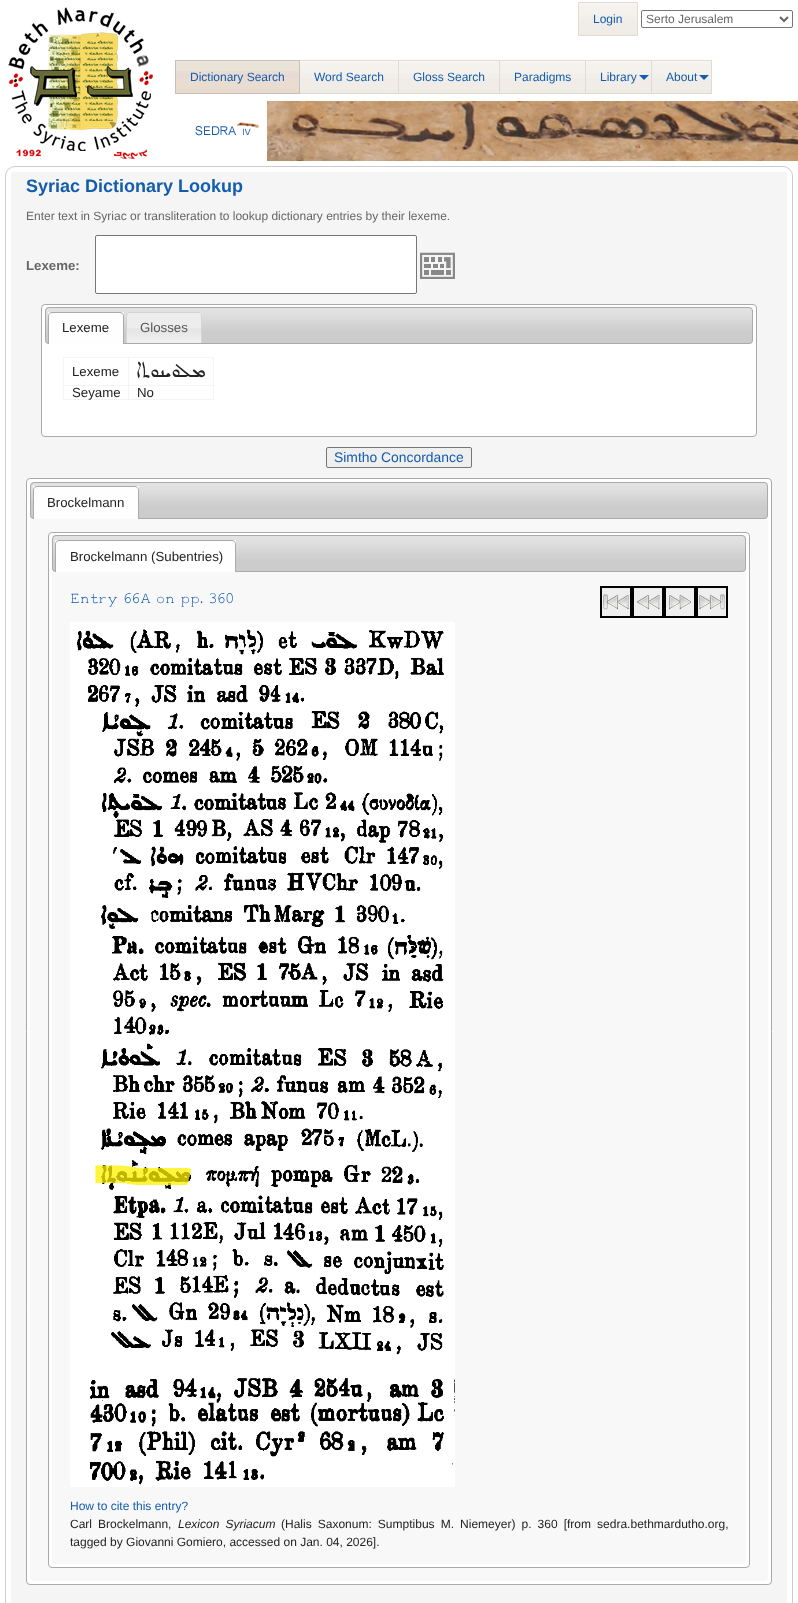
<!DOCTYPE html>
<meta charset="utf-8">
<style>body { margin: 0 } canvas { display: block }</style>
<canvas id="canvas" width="798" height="1603"></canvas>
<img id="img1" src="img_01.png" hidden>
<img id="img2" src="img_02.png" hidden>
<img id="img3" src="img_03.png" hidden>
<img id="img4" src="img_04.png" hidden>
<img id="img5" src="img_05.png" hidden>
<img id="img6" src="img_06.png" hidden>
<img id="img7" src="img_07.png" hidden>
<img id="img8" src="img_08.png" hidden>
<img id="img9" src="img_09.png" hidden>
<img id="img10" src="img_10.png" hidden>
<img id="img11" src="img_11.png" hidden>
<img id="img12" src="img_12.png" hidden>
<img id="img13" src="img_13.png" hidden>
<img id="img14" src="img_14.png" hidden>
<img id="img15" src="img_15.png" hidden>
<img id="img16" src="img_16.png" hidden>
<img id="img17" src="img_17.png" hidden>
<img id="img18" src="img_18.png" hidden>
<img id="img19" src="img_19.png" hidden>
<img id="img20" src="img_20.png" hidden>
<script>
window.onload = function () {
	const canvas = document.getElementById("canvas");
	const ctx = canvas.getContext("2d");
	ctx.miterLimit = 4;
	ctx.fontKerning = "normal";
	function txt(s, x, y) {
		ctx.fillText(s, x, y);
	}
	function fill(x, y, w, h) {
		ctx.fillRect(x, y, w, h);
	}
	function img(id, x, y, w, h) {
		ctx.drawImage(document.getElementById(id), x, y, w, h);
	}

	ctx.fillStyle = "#FFFFFF";
	fill(0, 0, 798, 1603);
	img("img1", 8, 7, 145, 152);
	img("img2", 579, 3, 58, 32);
	ctx.strokeStyle = "#E3DAD1";
	ctx.strokeRect(578.5, 2.5, 59, 33);
	ctx.beginPath();
	ctx.roundRect(641.5, 10.5, 151, 17, 1.5);
	ctx.strokeStyle = "#767676";
	ctx.stroke();
	ctx.beginPath();
	ctx.moveTo(780, 17);
	ctx.lineTo(784, 21);
	ctx.lineTo(788, 17);
	ctx.strokeStyle = "#666666";
	ctx.lineWidth = 2;
	ctx.stroke();
	img("img3", 176, 61, 123, 32);
	ctx.strokeStyle = "#CBC0B7";
	ctx.lineWidth = 1;
	ctx.strokeRect(175.5, 60.5, 124, 33);
	img("img4", 300, 61, 98, 32);
	ctx.fillStyle = "#E3DAD1";
	fill(300, 60, 412, 1);
	fill(398, 60, 1, 34);
	fill(300, 93, 99, 1);
	img("img5", 399, 61, 100, 32);
	fill(499, 60, 1, 34);
	fill(399, 93, 101, 1);
	img("img6", 500, 61, 85, 32);
	fill(585, 60, 1, 34);
	fill(500, 93, 86, 1);
	img("img7", 586, 61, 65, 32);
	fill(651, 60, 1, 34);
	fill(586, 93, 66, 1);
	ctx.fillStyle = "#135CAE";
	ctx.beginPath();
	ctx.moveTo(639, 75);
	ctx.lineTo(649, 75);
	ctx.lineTo(644, 80);
	ctx.closePath();
	ctx.fill();
	img("img8", 652, 61, 59, 32);
	ctx.fillStyle = "#E3DAD1";
	fill(711, 60, 1, 34);
	fill(652, 93, 60, 1);
	ctx.fillStyle = "#135CAE";
	ctx.beginPath();
	ctx.moveTo(699, 75);
	ctx.lineTo(709, 75);
	ctx.lineTo(704, 80);
	ctx.closePath();
	ctx.fill();
	img("img9", 195, 101, 603, 60);
	ctx.beginPath();
	ctx.roundRect(5.5, 166.5, 787, 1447, 9.5);
	ctx.strokeStyle = "#CCCCCC";
	ctx.stroke();
	ctx.fillStyle = "#F5F5F5";
	fill(11, 172, 776, 1431);
	ctx.fillStyle = "#FFFFFF";
	ctx.beginPath();
	ctx.roundRect(95.5, 235.5, 321, 58, 1.5);
	ctx.fill();
	ctx.strokeStyle = "#767676";
	ctx.stroke();
	img("img10", 420, 252, 35, 27);
	ctx.beginPath();
	ctx.roundRect(41.5, 304.5, 715, 132, 3.5);
	ctx.fill();
	ctx.strokeStyle = "#AAAAAA";
	ctx.stroke();
	img("img11", 45, 307, 708, 37);
	ctx.beginPath();
	ctx.roundRect(45.5, 307.5, 707, 36, 3.5);
	ctx.stroke();
	ctx.fillStyle = "#FEFEFE";
	fill(48, 312, 76, 32);
	ctx.fillStyle = "#AAAAAA";
	ctx.beginPath();
	ctx.moveTo(52, 312);
	ctx.lineTo(120, 312);
	ctx.bezierCurveTo(122, 312, 124, 314, 124, 316);
	ctx.lineTo(124, 344);
	ctx.lineTo(48, 344);
	ctx.lineTo(48, 316);
	ctx.bezierCurveTo(48, 314, 50, 312, 52, 312);
	ctx.closePath();
	ctx.moveTo(52, 313);
	ctx.lineTo(120, 313);
	ctx.bezierCurveTo(122, 313, 123, 314, 123, 316);
	ctx.lineTo(123, 344);
	ctx.lineTo(49, 344);
	ctx.lineTo(49, 316);
	ctx.bezierCurveTo(49, 314, 50, 313, 52, 313);
	ctx.closePath();
	ctx.fill("evenodd");
	img("img12", 126, 312, 76, 31);
	ctx.fillStyle = "#D3D3D3";
	ctx.beginPath();
	ctx.moveTo(130, 312);
	ctx.lineTo(198, 312);
	ctx.bezierCurveTo(200, 312, 202, 314, 202, 316);
	ctx.lineTo(202, 343);
	ctx.lineTo(126, 343);
	ctx.lineTo(126, 316);
	ctx.bezierCurveTo(126, 314, 128, 312, 130, 312);
	ctx.closePath();
	ctx.moveTo(130, 313);
	ctx.lineTo(198, 313);
	ctx.bezierCurveTo(200, 313, 201, 314, 201, 316);
	ctx.lineTo(201, 343);
	ctx.lineTo(127, 343);
	ctx.lineTo(127, 316);
	ctx.bezierCurveTo(127, 314, 128, 313, 130, 313);
	ctx.closePath();
	ctx.fill("evenodd");
	ctx.fillStyle = "#F4F4F4";
	fill(63, 357, 151, 1);
	fill(213, 357, 1, 43);
	fill(63, 399, 151, 1);
	fill(63, 357, 1, 43);
	fill(128, 385, 86, 1);
	fill(128, 385, 1, 15);
	fill(63, 385, 66, 1);
	fill(128, 357, 1, 29);
	ctx.fillStyle = "#EFEFEF";
	ctx.beginPath();
	ctx.roundRect(326.5, 447.5, 145, 20, 1.5);
	ctx.fill();
	ctx.strokeStyle = "#767676";
	ctx.stroke();
	ctx.fillStyle = "#FFFFFF";
	ctx.beginPath();
	ctx.roundRect(26.5, 478.5, 745, 1106, 3.5);
	ctx.fill();
	ctx.strokeStyle = "#AAAAAA";
	ctx.stroke();
	img("img13", 30, 482, 738, 37);
	ctx.beginPath();
	ctx.roundRect(30.5, 482.5, 737, 36, 3.5);
	ctx.stroke();
	ctx.fillStyle = "#FEFEFE";
	fill(33, 486, 106, 33);
	ctx.fillStyle = "#AAAAAA";
	ctx.beginPath();
	ctx.moveTo(37, 486);
	ctx.lineTo(135, 486);
	ctx.bezierCurveTo(137, 486, 139, 488, 139, 490);
	ctx.lineTo(139, 519);
	ctx.lineTo(33, 519);
	ctx.lineTo(33, 490);
	ctx.bezierCurveTo(33, 488, 35, 486, 37, 486);
	ctx.closePath();
	ctx.moveTo(37, 487);
	ctx.lineTo(135, 487);
	ctx.bezierCurveTo(137, 487, 138, 488, 138, 490);
	ctx.lineTo(138, 519);
	ctx.lineTo(34, 519);
	ctx.lineTo(34, 490);
	ctx.bezierCurveTo(34, 488, 35, 487, 37, 487);
	ctx.closePath();
	ctx.fill("evenodd");
	ctx.fillStyle = "#F8F8F8";
	ctx.beginPath();
	ctx.roundRect(30, 519, 738, 1062, [0, 0, 4, 4]);
	ctx.fill();
	ctx.fillStyle = "#FFFFFF";
	ctx.beginPath();
	ctx.roundRect(48.5, 532.5, 701, 1035, 3.5);
	ctx.fill();
	ctx.stroke();
	img("img14", 52, 535, 694, 37);
	ctx.beginPath();
	ctx.roundRect(52.5, 535.5, 693, 36, 3.5);
	ctx.stroke();
	ctx.fillStyle = "#FEFEFE";
	fill(55, 540, 181, 32);
	ctx.fillStyle = "#AAAAAA";
	ctx.beginPath();
	ctx.moveTo(59, 540);
	ctx.lineTo(232, 540);
	ctx.bezierCurveTo(234, 540, 236, 542, 236, 544);
	ctx.lineTo(236, 572);
	ctx.lineTo(55, 572);
	ctx.lineTo(55, 544);
	ctx.bezierCurveTo(55, 542, 57, 540, 59, 540);
	ctx.closePath();
	ctx.moveTo(59, 541);
	ctx.lineTo(232, 541);
	ctx.bezierCurveTo(234, 541, 235, 542, 235, 544);
	ctx.lineTo(235, 572);
	ctx.lineTo(56, 572);
	ctx.lineTo(56, 544);
	ctx.bezierCurveTo(56, 542, 57, 541, 59, 541);
	ctx.closePath();
	ctx.fill("evenodd");
	ctx.fillStyle = "#F8F8F8";
	ctx.beginPath();
	ctx.roundRect(52, 572, 694, 992, [0, 0, 4, 4]);
	ctx.fill();
	ctx.fillStyle = "#EFEFEF";
	fill(602, 588, 28, 28);
	img("img15", 603, 594, 26, 16);
	ctx.strokeStyle = "#000000";
	ctx.lineWidth = 2;
	ctx.strokeRect(601, 587, 30, 30);
	fill(634, 588, 28, 28);
	img("img16", 636, 594, 24, 16);
	ctx.strokeRect(633, 587, 30, 30);
	fill(666, 588, 28, 28);
	img("img17", 669, 594, 22, 16);
	ctx.strokeRect(665, 587, 30, 30);
	fill(698, 588, 28, 28);
	img("img18", 699, 594, 26, 16);
	ctx.strokeRect(697, 587, 30, 30);
	img("img19", 70, 622, 385, 745);
	img("img20", 70, 1367, 385, 120);
	ctx.font = "12px Liberation Sans";
	ctx.fillStyle = "#135CAE";
	txt("Login", 593, 23);
	ctx.fillStyle = "#666666";
	txt("Serto Jerusalem", 646, 23);
	ctx.fillStyle = "#135CAE";
	txt("Dictionary Search", 190, 81);
	txt("Word Search", 314, 81);
	txt("Gloss Search", 413, 81);
	txt("Paradigms", 514, 81);
	txt("Library", 600, 81);
	txt("About", 666, 81);
	ctx.font = "bold 18px Liberation Sans";
	txt("Syriac Dictionary Lookup", 26, 192);
	ctx.font = "12px Liberation Sans";
	ctx.fillStyle = "#666666";
	txt("Enter text in Syriac or transliteration to lookup dictionary entries by their lexeme.", 26, 220);
	ctx.font = "bold 13.25px Liberation Sans";
	txt("Lexeme:", 26, 270);
	ctx.font = "13.25px Liberation Sans";
	ctx.fillStyle = "#222222";
	txt("Lexeme", 62, 332);
	ctx.fillStyle = "#555555";
	txt("Glosses", 140, 332);
	ctx.fillStyle = "#222222";
	txt("Lexeme", 72, 376);
	ctx.direction = "rtl";
	ctx.font = "26.5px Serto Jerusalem";
	txt("ܡܠܘܝܢܘܬܐ", 205, 377);
	ctx.direction = "ltr";
	ctx.font = "13.25px Liberation Sans";
	txt("Seyame", 72, 397);
	txt("No", 137, 397);
	ctx.font = "13.9px Liberation Sans";
	ctx.fillStyle = "#135CAE";
	txt("Simtho Concordance", 334, 462);
	ctx.font = "13.25px Liberation Sans";
	ctx.fillStyle = "#222222";
	txt("Brockelmann", 47, 507);
	txt("Brockelmann (Subentries)", 70, 561);
	ctx.font = "bold 16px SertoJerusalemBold";
	ctx.fillStyle = "#135CAE";
	txt("Entry 66A on pp. 360", 70, 603);
	ctx.font = "12px Liberation Sans";
	txt("How to cite this entry?", 70, 1510);
	ctx.wordSpacing = "2.75px";
	ctx.fillStyle = "#222222";
	txt("Carl Brockelmann,", 70, 1528);
	ctx.font = "italic 12px Liberation Sans";
	txt("Lexicon Syriacum", 178, 1528);
	ctx.font = "12px Liberation Sans";
	txt("(Halis Saxonum: Sumptibus M. Niemeyer) p. 360 [from sedra.bethmardutho.org,", 281, 1528);
	ctx.wordSpacing = "0px";
	txt("tagged by Giovanni Gomiero, accessed on Jan. 04, 2026].", 70, 1546);
};
</script>
